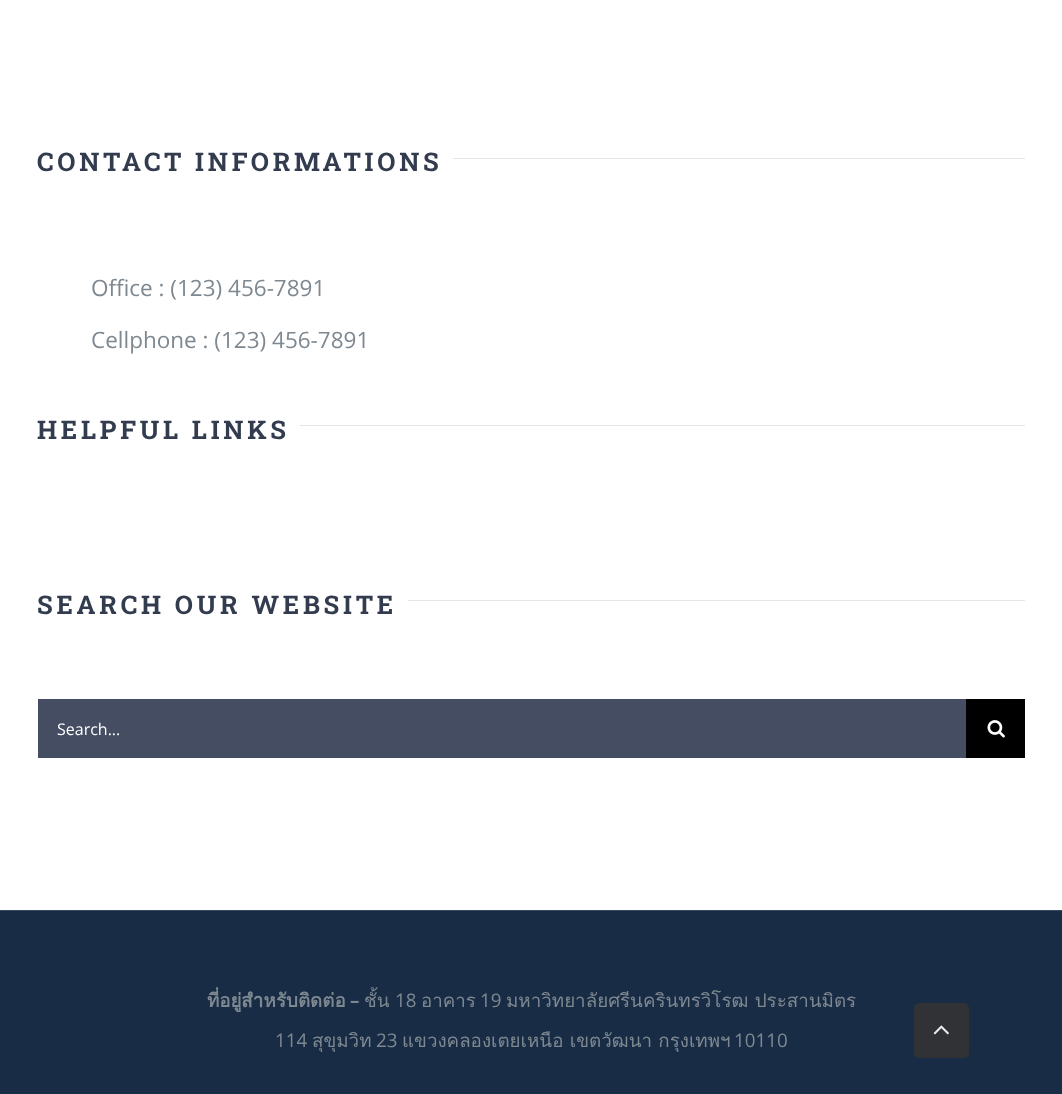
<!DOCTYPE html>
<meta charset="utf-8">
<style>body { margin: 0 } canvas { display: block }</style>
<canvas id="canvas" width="1062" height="1094"></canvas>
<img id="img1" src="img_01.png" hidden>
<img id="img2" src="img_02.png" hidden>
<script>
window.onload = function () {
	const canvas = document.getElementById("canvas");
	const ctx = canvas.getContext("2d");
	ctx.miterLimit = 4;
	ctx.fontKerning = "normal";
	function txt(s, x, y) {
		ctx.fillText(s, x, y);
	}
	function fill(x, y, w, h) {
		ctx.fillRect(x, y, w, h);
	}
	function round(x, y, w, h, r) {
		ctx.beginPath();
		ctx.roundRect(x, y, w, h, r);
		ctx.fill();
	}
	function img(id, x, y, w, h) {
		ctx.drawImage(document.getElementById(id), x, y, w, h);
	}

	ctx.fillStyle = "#FFFFFF";
	fill(0, 0, 1062, 1094);
	ctx.fillStyle = "#E7E4E2";
	fill(453, 158, 572, 1);
	fill(300, 425, 725, 1);
	fill(408, 600, 617, 1);
	ctx.fillStyle = "#444D62";
	fill(38, 699, 928, 59);
	ctx.fillStyle = "#000000";
	fill(966, 699, 59, 59);
	img("img1", 987, 720, 18, 18);
	ctx.fillStyle = "#182C45";
	fill(0, 911, 1062, 183);
	ctx.fillStyle = "#38485E";
	fill(0, 910, 1062, 1);
	ctx.fillStyle = "#303235";
	round(914, 1003, 55, 55, 5);
	img("img2", 933, 1025, 16, 10);
	ctx.letterSpacing = "3.75px";
	ctx.font = "bold 25.7px Roboto Slab";
	ctx.fillStyle = "#333C4E";
	txt("CONTACT INFORMATIONS", 37, 171);
	ctx.letterSpacing = "0px";
	ctx.font = "22.5px Open Sans";
	ctx.fillStyle = "#7E8890";
	txt("Office : (123) 456-7891", 91, 296);
	txt("Cellphone : (123) 456-7891", 91, 348);
	ctx.letterSpacing = "3.75px";
	ctx.font = "bold 25.7px Roboto Slab";
	ctx.fillStyle = "#333C4E";
	txt("HELPFUL LINKS", 37, 439);
	txt("SEARCH OUR WEBSITE", 37, 614);
	ctx.letterSpacing = "0px";
	ctx.font = "16px Open Sans";
	ctx.fillStyle = "#FFFFFF";
	txt("Search...", 57, 735);
	ctx.font = "bold 18.75px Loma";
	ctx.fillStyle = "#7E8890";
	txt("ที่อยู่สำหรับติดต่อ", 207, 1007);
	ctx.font = "bold 18.75px Open Sans";
	txt("–", 350, 1007);
	ctx.font = "18.75px Loma";
	txt("ชั้น", 364, 1007);
	ctx.font = "18.75px Open Sans";
	txt("18", 395, 1007);
	ctx.font = "18.75px Loma";
	txt("อาคาร", 421, 1007);
	ctx.font = "18.75px Open Sans";
	txt("19", 480, 1007);
	ctx.font = "18.75px Loma";
	txt("มหาวิทยาลัยศรีนครินทรวิโรฒ ประสานมิตร", 506, 1007);
	ctx.font = "18.75px Open Sans";
	txt("114", 275, 1047);
	ctx.font = "18.75px Loma";
	txt("สุขุมวิท", 312, 1047);
	ctx.font = "18.75px Open Sans";
	txt("23", 376, 1047);
	ctx.font = "18.75px Loma";
	txt("แขวงคลองเตยเหนือ เขตวัฒนา กรุงเทพฯ", 402, 1047);
	ctx.font = "18.75px Open Sans";
	txt("10110", 734, 1047);
};
</script>
